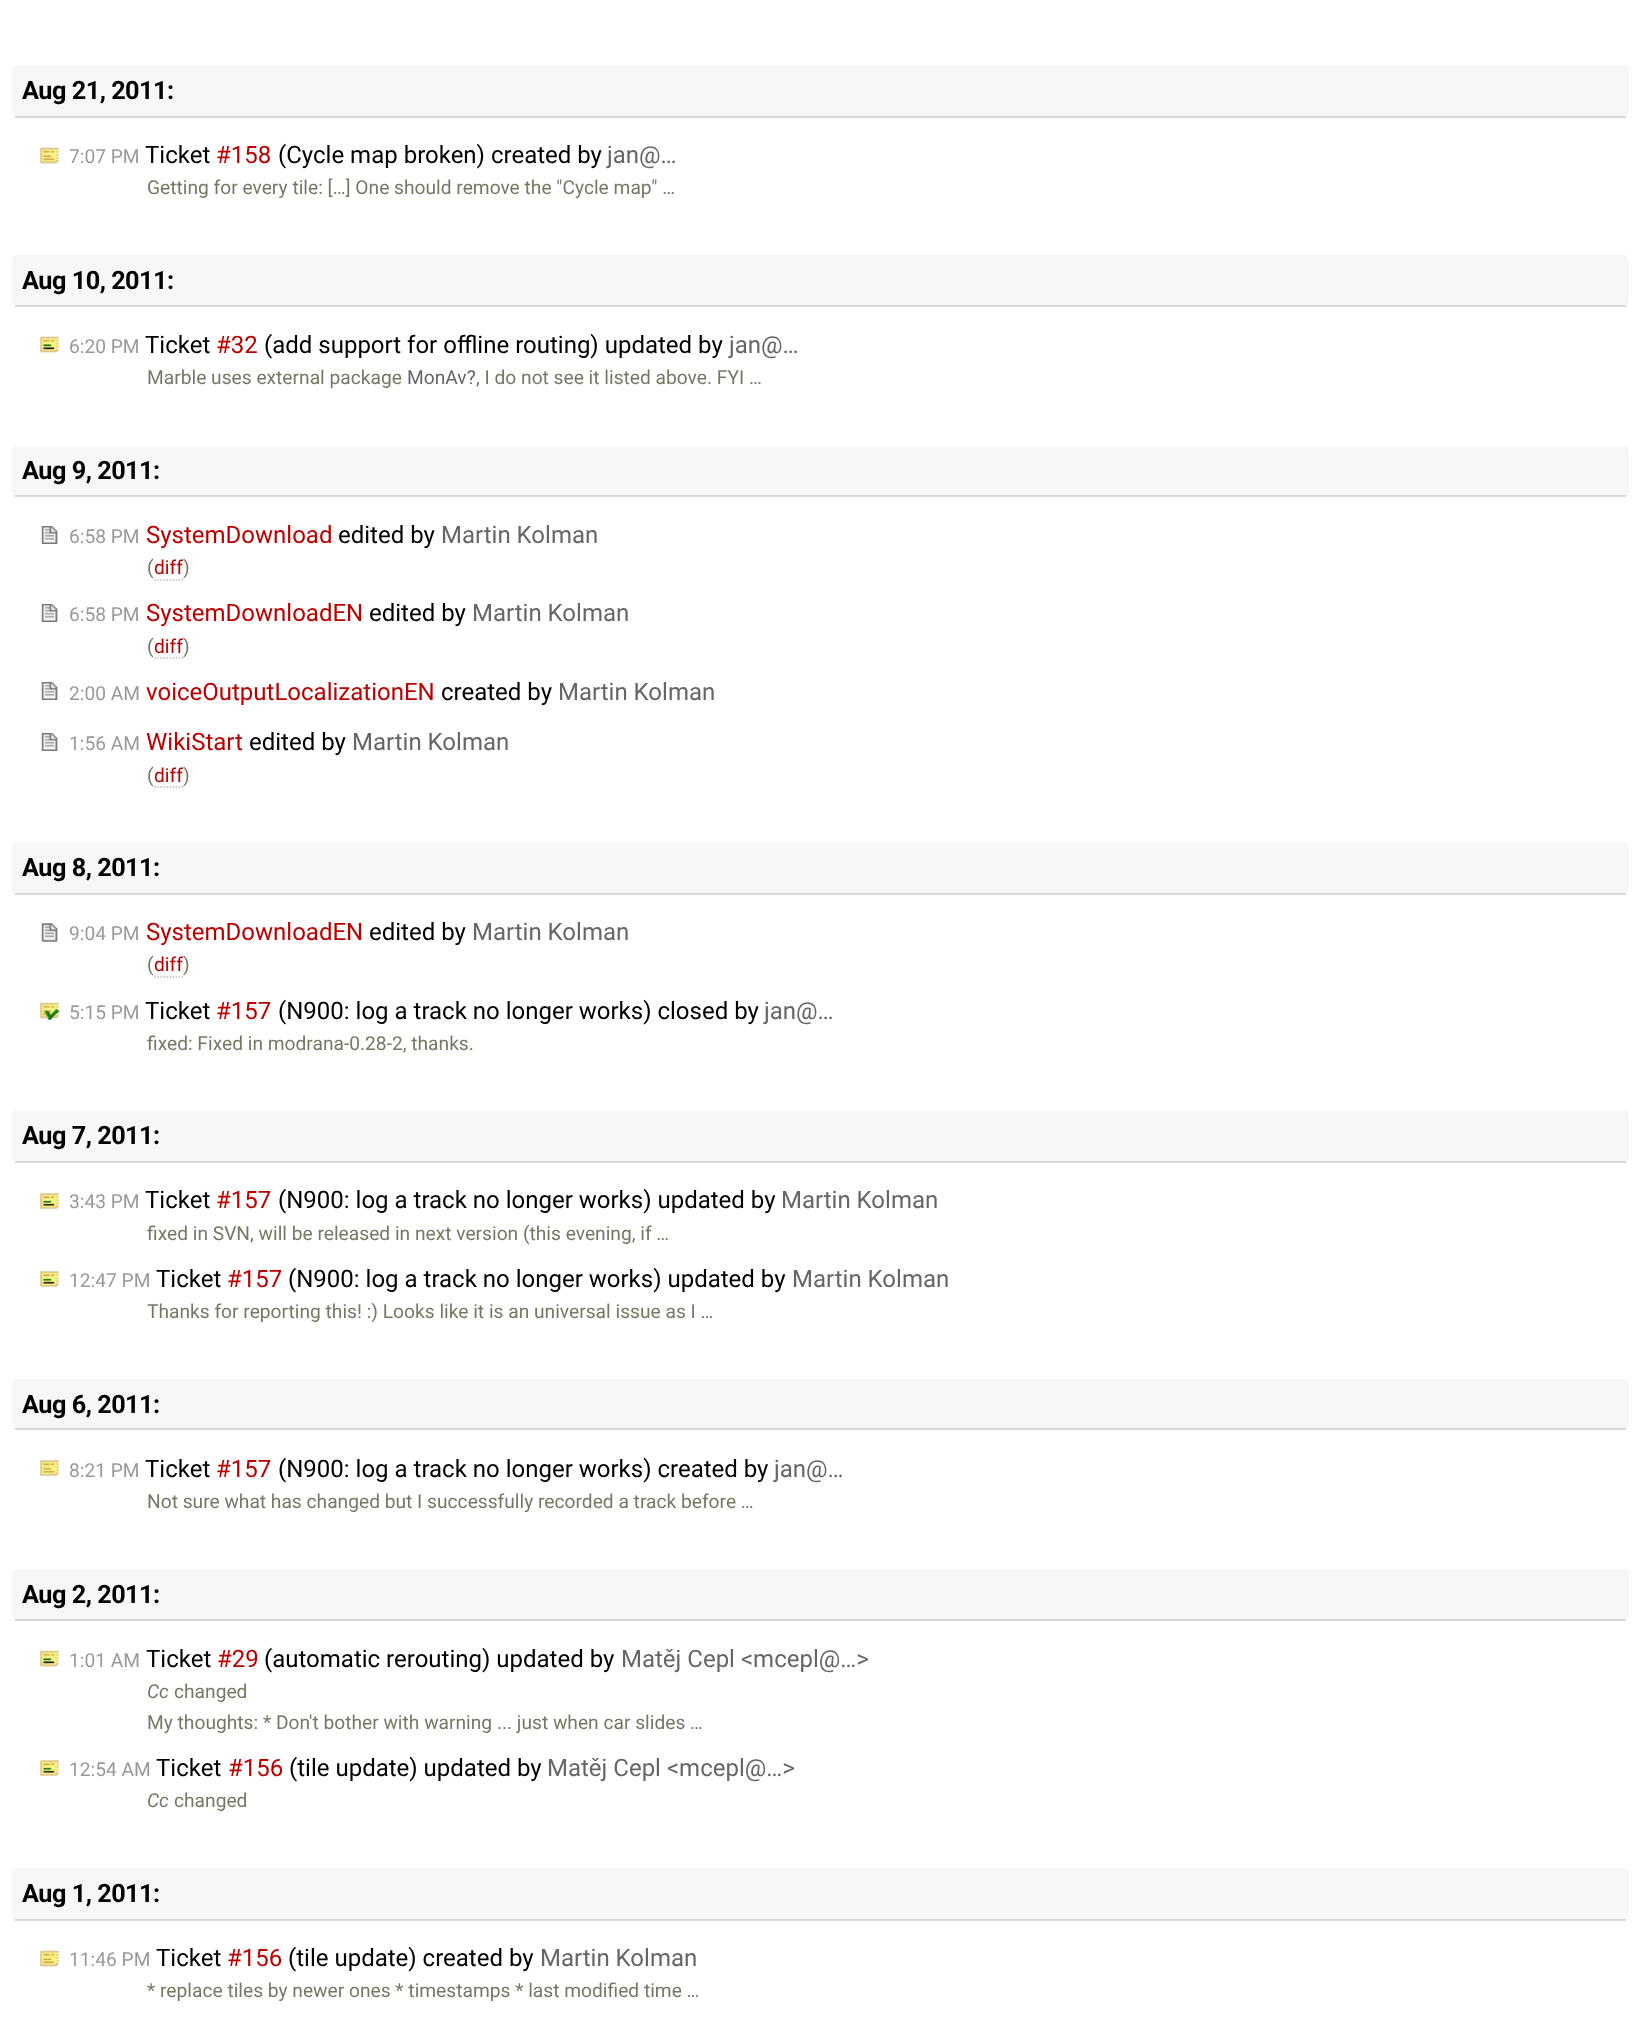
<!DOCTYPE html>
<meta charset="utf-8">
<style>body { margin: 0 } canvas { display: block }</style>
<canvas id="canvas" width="1641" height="2024"></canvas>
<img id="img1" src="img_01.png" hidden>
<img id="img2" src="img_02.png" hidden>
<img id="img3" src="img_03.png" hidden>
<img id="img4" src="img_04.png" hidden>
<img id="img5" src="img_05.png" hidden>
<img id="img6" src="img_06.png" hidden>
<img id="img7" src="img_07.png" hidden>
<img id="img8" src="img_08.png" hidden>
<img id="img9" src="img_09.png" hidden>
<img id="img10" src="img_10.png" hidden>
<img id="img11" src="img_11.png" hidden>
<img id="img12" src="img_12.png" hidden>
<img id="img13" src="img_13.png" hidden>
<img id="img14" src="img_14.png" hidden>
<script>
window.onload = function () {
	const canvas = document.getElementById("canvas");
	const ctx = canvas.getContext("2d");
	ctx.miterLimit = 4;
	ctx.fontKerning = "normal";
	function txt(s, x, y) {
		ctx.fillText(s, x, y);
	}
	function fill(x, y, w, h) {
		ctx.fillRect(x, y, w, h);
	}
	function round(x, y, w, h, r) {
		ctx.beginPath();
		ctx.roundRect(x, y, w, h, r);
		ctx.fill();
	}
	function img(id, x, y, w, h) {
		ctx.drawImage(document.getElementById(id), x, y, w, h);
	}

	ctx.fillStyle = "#FFFFFF";
	fill(0, 0, 1641, 2024);
	ctx.fillStyle = "#F7F7F7";
	round(12, 65, 1617, 52, 5);
	ctx.fillStyle = "#D7D7D7";
	fill(15, 116, 1611, 2);
	img("img1", 40, 147, 19, 17);
	img("img2", 40, 147, 19, 17);
	ctx.fillStyle = "#F7F7F7";
	round(12, 255, 1617, 51, 5);
	ctx.fillStyle = "#D7D7D7";
	fill(15, 305, 1611, 2);
	img("img3", 40, 336, 19, 17);
	img("img4", 40, 336, 19, 17);
	ctx.fillStyle = "#F7F7F7";
	round(12, 446, 1617, 51, 5);
	ctx.fillStyle = "#D7D7D7";
	fill(15, 495, 1611, 2);
	img("img5", 41, 526, 17, 18);
	img("img6", 41, 526, 17, 18);
	ctx.beginPath();
	ctx.moveTo(154.5, 580);
	ctx.lineTo(183, 580);
	ctx.strokeStyle = "#BBBBBB";
	ctx.lineWidth = 1.5;
	ctx.setLineDash([1.5, 1.5]);
	ctx.stroke();
	img("img5", 41, 604, 17, 18);
	img("img6", 41, 604, 17, 18);
	ctx.beginPath();
	ctx.moveTo(154.5, 658);
	ctx.lineTo(183, 658);
	ctx.stroke();
	img("img5", 41, 682, 17, 18);
	img("img6", 41, 682, 17, 18);
	img("img5", 41, 733, 17, 18);
	img("img6", 41, 733, 17, 18);
	ctx.beginPath();
	ctx.moveTo(154.5, 787);
	ctx.lineTo(183, 787);
	ctx.stroke();
	ctx.fillStyle = "#F7F7F7";
	round(12, 842, 1617, 52, 5);
	ctx.fillStyle = "#D7D7D7";
	fill(15, 893, 1611, 2);
	img("img7", 41, 923, 17, 19);
	img("img8", 41, 923, 17, 19);
	ctx.beginPath();
	ctx.moveTo(154.5, 977);
	ctx.lineTo(183, 977);
	ctx.stroke();
	img("img9", 40, 1002, 19, 18);
	img("img10", 40, 1002, 19, 18);
	ctx.fillStyle = "#F7F7F7";
	round(12, 1110, 1617, 53, 5);
	ctx.fillStyle = "#D7D7D7";
	fill(15, 1161, 1611, 2);
	img("img11", 40, 1193, 19, 16);
	img("img12", 40, 1193, 19, 16);
	img("img11", 40, 1271, 19, 16);
	img("img12", 40, 1271, 19, 16);
	ctx.fillStyle = "#F7F7F7";
	round(12, 1379, 1617, 51, 5);
	ctx.fillStyle = "#D7D7D7";
	fill(15, 1428, 1611, 2);
	img("img13", 40, 1460, 19, 16);
	img("img14", 40, 1460, 19, 16);
	ctx.fillStyle = "#F7F7F7";
	round(12, 1569, 1617, 51, 5);
	ctx.fillStyle = "#D7D7D7";
	fill(15, 1619, 1611, 2);
	img("img3", 40, 1650, 19, 17);
	img("img4", 40, 1650, 19, 17);
	img("img11", 40, 1760, 19, 16);
	img("img12", 40, 1760, 19, 16);
	ctx.fillStyle = "#F7F7F7";
	round(12, 1868, 1617, 52, 5);
	ctx.fillStyle = "#D7D7D7";
	fill(15, 1919, 1611, 2);
	img("img1", 40, 1950, 19, 17);
	img("img2", 40, 1950, 19, 17);
	ctx.letterSpacing = "-0.5px";
	ctx.font = "bold 25.25px Roboto";
	ctx.fillStyle = "#000000";
	txt("Aug 21, 2011:", 22, 99);
	ctx.letterSpacing = "0px";
	ctx.font = "19.2px Roboto";
	ctx.fillStyle = "#999999";
	txt("7:07 PM", 69, 163);
	ctx.font = "24px Roboto";
	ctx.fillStyle = "#000000";
	txt("Ticket", 145, 163);
	ctx.fillStyle = "#BB0000";
	txt("#158", 216, 163);
	ctx.fillStyle = "#000000";
	txt("(Cycle map broken) created by", 278, 163);
	ctx.fillStyle = "#666666";
	txt("jan@…", 607, 163);
	ctx.font = "19.2px Roboto";
	ctx.fillStyle = "#777766";
	txt("Getting for every tile: […] One should remove the \"Cycle map\" …", 147, 194);
	ctx.letterSpacing = "-0.5px";
	ctx.font = "bold 25.25px Roboto";
	ctx.fillStyle = "#000000";
	txt("Aug 10, 2011:", 22, 289);
	ctx.letterSpacing = "0px";
	ctx.font = "19.2px Roboto";
	ctx.fillStyle = "#999999";
	txt("6:20 PM", 69, 353);
	ctx.font = "24px Roboto";
	ctx.fillStyle = "#000000";
	txt("Ticket", 145, 353);
	ctx.fillStyle = "#BB0000";
	txt("#32", 216, 353);
	ctx.fillStyle = "#000000";
	txt("(add support for offline routing) updated by", 264, 353);
	ctx.fillStyle = "#666666";
	txt("jan@…", 729, 353);
	ctx.font = "19.2px Roboto";
	ctx.fillStyle = "#777766";
	txt("Marble uses external package", 147, 384);
	ctx.fillStyle = "#666666";
	txt("MonAv?", 407, 384);
	ctx.fillStyle = "#777766";
	txt(", I do not see it listed above. FYI …", 476, 384);
	ctx.letterSpacing = "-0.5px";
	ctx.font = "bold 25.25px Roboto";
	ctx.fillStyle = "#000000";
	txt("Aug 9, 2011:", 22, 479);
	ctx.letterSpacing = "0px";
	ctx.font = "19.2px Roboto";
	ctx.fillStyle = "#999999";
	txt("6:58 PM", 69, 543);
	ctx.font = "24px Roboto";
	ctx.fillStyle = "#BB0000";
	txt("SystemDownload", 146, 543);
	ctx.fillStyle = "#000000";
	txt("edited by", 338, 543);
	ctx.fillStyle = "#666666";
	txt("Martin Kolman", 441, 543);
	ctx.font = "19.2px Roboto";
	ctx.fillStyle = "#777766";
	txt("(", 147, 574);
	ctx.fillStyle = "#BB0000";
	txt("diff", 154, 574);
	ctx.fillStyle = "#777766";
	txt(")", 183, 574);
	ctx.fillStyle = "#999999";
	txt("6:58 PM", 69, 621);
	ctx.font = "24px Roboto";
	ctx.fillStyle = "#BB0000";
	txt("SystemDownloadEN", 146, 621);
	ctx.fillStyle = "#000000";
	txt("edited by", 369, 621);
	ctx.fillStyle = "#666666";
	txt("Martin Kolman", 472, 621);
	ctx.font = "19.2px Roboto";
	ctx.fillStyle = "#777766";
	txt("(", 147, 653);
	ctx.fillStyle = "#BB0000";
	txt("diff", 154, 653);
	ctx.fillStyle = "#777766";
	txt(")", 183, 653);
	ctx.fillStyle = "#999999";
	txt("2:00 AM", 69, 700);
	ctx.font = "24px Roboto";
	ctx.fillStyle = "#BB0000";
	txt("voiceOutputLocalizationEN", 146, 700);
	ctx.fillStyle = "#000000";
	txt("created by", 441, 700);
	ctx.fillStyle = "#666666";
	txt("Martin Kolman", 558, 700);
	ctx.font = "19.2px Roboto";
	ctx.fillStyle = "#999999";
	txt("1:56 AM", 69, 750);
	ctx.font = "24px Roboto";
	ctx.fillStyle = "#BB0000";
	txt("WikiStart", 146, 750);
	ctx.fillStyle = "#000000";
	txt("edited by", 249, 750);
	ctx.fillStyle = "#666666";
	txt("Martin Kolman", 352, 750);
	ctx.font = "19.2px Roboto";
	ctx.fillStyle = "#777766";
	txt("(", 147, 782);
	ctx.fillStyle = "#BB0000";
	txt("diff", 154, 782);
	ctx.fillStyle = "#777766";
	txt(")", 183, 782);
	ctx.letterSpacing = "-0.5px";
	ctx.font = "bold 25.25px Roboto";
	ctx.fillStyle = "#000000";
	txt("Aug 8, 2011:", 22, 876);
	ctx.letterSpacing = "0px";
	ctx.font = "19.2px Roboto";
	ctx.fillStyle = "#999999";
	txt("9:04 PM", 69, 940);
	ctx.font = "24px Roboto";
	ctx.fillStyle = "#BB0000";
	txt("SystemDownloadEN", 146, 940);
	ctx.fillStyle = "#000000";
	txt("edited by", 369, 940);
	ctx.fillStyle = "#666666";
	txt("Martin Kolman", 472, 940);
	ctx.font = "19.2px Roboto";
	ctx.fillStyle = "#777766";
	txt("(", 147, 971);
	ctx.fillStyle = "#BB0000";
	txt("diff", 154, 971);
	ctx.fillStyle = "#777766";
	txt(")", 183, 971);
	ctx.fillStyle = "#999999";
	txt("5:15 PM", 69, 1019);
	ctx.font = "24px Roboto";
	ctx.fillStyle = "#000000";
	txt("Ticket", 145, 1019);
	ctx.fillStyle = "#BB0000";
	txt("#157", 216, 1019);
	ctx.fillStyle = "#000000";
	txt("(N900: log a track no longer works) closed by", 278, 1019);
	ctx.fillStyle = "#666666";
	txt("jan@…", 764, 1019);
	ctx.font = "19.2px Roboto";
	ctx.fillStyle = "#777766";
	txt("fixed: Fixed in modrana-0.28-2, thanks.", 147, 1050);
	ctx.letterSpacing = "-0.5px";
	ctx.font = "bold 25.25px Roboto";
	ctx.fillStyle = "#000000";
	txt("Aug 7, 2011:", 22, 1144);
	ctx.letterSpacing = "0px";
	ctx.font = "19.2px Roboto";
	ctx.fillStyle = "#999999";
	txt("3:43 PM", 69, 1208);
	ctx.font = "24px Roboto";
	ctx.fillStyle = "#000000";
	txt("Ticket", 145, 1208);
	ctx.fillStyle = "#BB0000";
	txt("#157", 216, 1208);
	ctx.fillStyle = "#000000";
	txt("(N900: log a track no longer works) updated by", 278, 1208);
	ctx.fillStyle = "#666666";
	txt("Martin Kolman", 781, 1208);
	ctx.font = "19.2px Roboto";
	ctx.fillStyle = "#777766";
	txt("fixed in SVN, will be released in next version (this evening, if …", 147, 1240);
	ctx.fillStyle = "#999999";
	txt("12:47 PM", 69, 1287);
	ctx.font = "24px Roboto";
	ctx.fillStyle = "#000000";
	txt("Ticket", 156, 1287);
	ctx.fillStyle = "#BB0000";
	txt("#157", 227, 1287);
	ctx.fillStyle = "#000000";
	txt("(N900: log a track no longer works) updated by", 288, 1287);
	ctx.fillStyle = "#666666";
	txt("Martin Kolman", 792, 1287);
	ctx.font = "19.2px Roboto";
	ctx.fillStyle = "#777766";
	txt("Thanks for reporting this! :) Looks like it is an universal issue as I …", 147, 1318);
	ctx.letterSpacing = "-0.5px";
	ctx.font = "bold 25.25px Roboto";
	ctx.fillStyle = "#000000";
	txt("Aug 6, 2011:", 22, 1413);
	ctx.letterSpacing = "0px";
	ctx.font = "19.2px Roboto";
	ctx.fillStyle = "#999999";
	txt("8:21 PM", 69, 1477);
	ctx.font = "24px Roboto";
	ctx.fillStyle = "#000000";
	txt("Ticket", 145, 1477);
	ctx.fillStyle = "#BB0000";
	txt("#157", 216, 1477);
	ctx.fillStyle = "#000000";
	txt("(N900: log a track no longer works) created by", 278, 1477);
	ctx.fillStyle = "#666666";
	txt("jan@…", 774, 1477);
	ctx.font = "19.2px Roboto";
	ctx.fillStyle = "#777766";
	txt("Not sure what has changed but I successfully recorded a track before …", 147, 1508);
	ctx.letterSpacing = "-0.5px";
	ctx.font = "bold 25.25px Roboto";
	ctx.fillStyle = "#000000";
	txt("Aug 2, 2011:", 22, 1603);
	ctx.letterSpacing = "0px";
	ctx.font = "19.2px Roboto";
	ctx.fillStyle = "#999999";
	txt("1:01 AM", 69, 1667);
	ctx.font = "24px Roboto";
	ctx.fillStyle = "#000000";
	txt("Ticket", 146, 1667);
	ctx.fillStyle = "#BB0000";
	txt("#29", 217, 1667);
	ctx.fillStyle = "#000000";
	txt("(automatic rerouting) updated by", 264, 1667);
	ctx.fillStyle = "#666666";
	txt("Matěj Cepl <mcepl@…>", 621, 1667);
	ctx.font = "italic 19.2px Roboto";
	ctx.fillStyle = "#777766";
	txt("Cc", 147, 1698);
	ctx.font = "19.2px Roboto";
	txt("changed", 174, 1698);
	txt("My thoughts: * Don't bother with warning ... just when car slides …", 147, 1729);
	ctx.fillStyle = "#999999";
	txt("12:54 AM", 69, 1776);
	ctx.font = "24px Roboto";
	ctx.fillStyle = "#000000";
	txt("Ticket", 156, 1776);
	ctx.fillStyle = "#BB0000";
	txt("#156", 228, 1776);
	ctx.fillStyle = "#000000";
	txt("(tile update) updated by", 289, 1776);
	ctx.fillStyle = "#666666";
	txt("Matěj Cepl <mcepl@…>", 547, 1776);
	ctx.font = "italic 19.2px Roboto";
	ctx.fillStyle = "#777766";
	txt("Cc", 147, 1807);
	ctx.font = "19.2px Roboto";
	txt("changed", 174, 1807);
	ctx.letterSpacing = "-0.5px";
	ctx.font = "bold 25.25px Roboto";
	ctx.fillStyle = "#000000";
	txt("Aug 1, 2011:", 22, 1902);
	ctx.letterSpacing = "0px";
	ctx.font = "19.2px Roboto";
	ctx.fillStyle = "#999999";
	txt("11:46 PM", 69, 1966);
	ctx.font = "24px Roboto";
	ctx.fillStyle = "#000000";
	txt("Ticket", 156, 1966);
	ctx.fillStyle = "#BB0000";
	txt("#156", 227, 1966);
	ctx.fillStyle = "#000000";
	txt("(tile update) created by", 288, 1966);
	ctx.fillStyle = "#666666";
	txt("Martin Kolman", 540, 1966);
	ctx.font = "19.2px Roboto";
	ctx.fillStyle = "#777766";
	txt("* replace tiles by newer ones * timestamps * last modified time …", 147, 1997);
};
</script>
